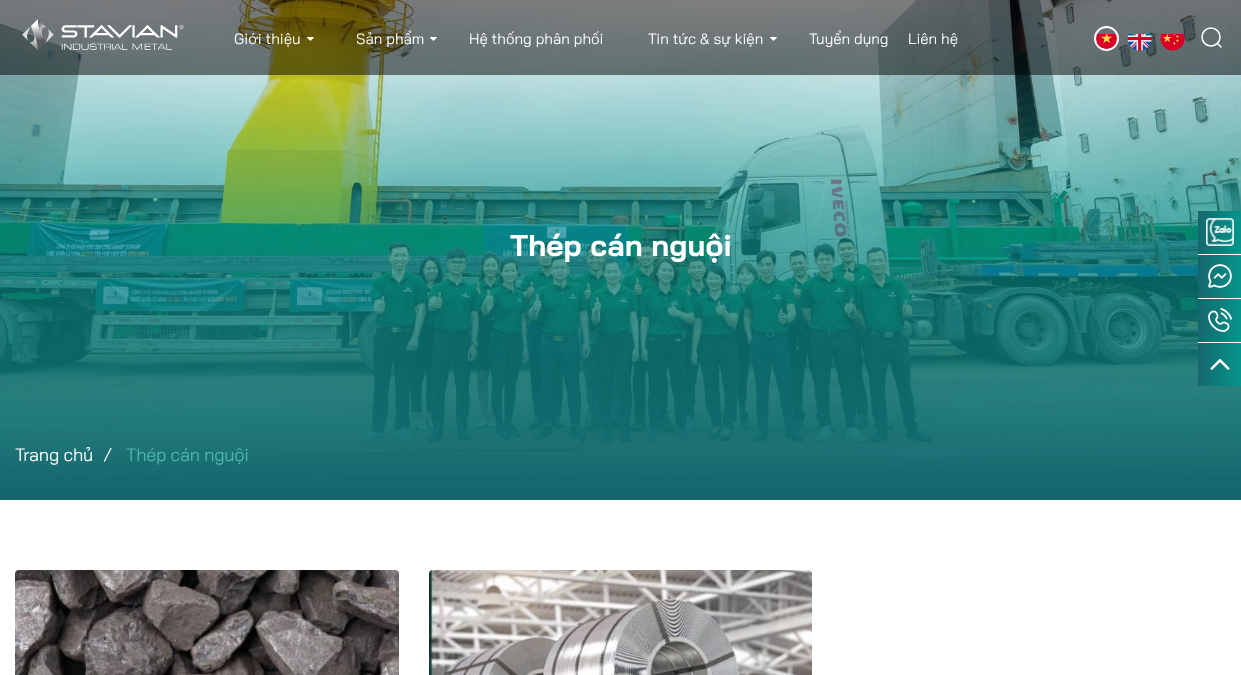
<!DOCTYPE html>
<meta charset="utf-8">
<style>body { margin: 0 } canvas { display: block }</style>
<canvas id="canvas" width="1241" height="675"></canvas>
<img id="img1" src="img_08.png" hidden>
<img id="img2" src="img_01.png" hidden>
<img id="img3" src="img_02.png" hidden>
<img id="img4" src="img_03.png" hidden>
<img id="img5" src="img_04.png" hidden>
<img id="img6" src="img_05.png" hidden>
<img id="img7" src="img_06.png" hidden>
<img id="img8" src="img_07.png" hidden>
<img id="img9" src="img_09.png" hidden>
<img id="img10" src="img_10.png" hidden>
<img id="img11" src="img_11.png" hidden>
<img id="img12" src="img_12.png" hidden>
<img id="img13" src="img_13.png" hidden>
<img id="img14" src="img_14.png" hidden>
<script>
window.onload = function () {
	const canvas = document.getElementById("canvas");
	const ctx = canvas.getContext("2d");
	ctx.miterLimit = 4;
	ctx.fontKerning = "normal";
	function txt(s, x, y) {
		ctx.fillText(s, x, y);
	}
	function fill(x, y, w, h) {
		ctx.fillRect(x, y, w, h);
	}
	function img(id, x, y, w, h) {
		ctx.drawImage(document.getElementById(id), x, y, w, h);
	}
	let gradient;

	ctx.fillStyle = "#FFFFFF";
	fill(0, 0, 1241, 675);
	img("img1", 0, 0, 1241, 500);
	ctx.fillStyle = "rgba(0, 0, 0, 0.5)";
	fill(0, 0, 1241, 75);
	img("img2", 22, 19, 162, 31);
	img("img3", 307, 37, 7, 4);
	img("img4", 430, 37, 7, 4);
	img("img5", 770, 37, 7, 4);
	img("img6", 1094, 34, 25, 17);
	ctx.beginPath();
	ctx.arc(1106.5, 38.5, 11.5, 0, Math.PI * 2);
	ctx.strokeStyle = "#FFFFFF";
	ctx.lineWidth = 2;
	ctx.stroke();
	img("img7", 1127, 34, 25, 17);
	img("img8", 1160, 34, 25, 17);
	ctx.beginPath();
	ctx.arc(1211, 37, 9, 0, Math.PI * 2);
	ctx.lineWidth = 1.5;
	ctx.stroke();
	ctx.beginPath();
	ctx.moveTo(1217.5, 43.5);
	ctx.lineTo(1221, 47);
	ctx.lineCap = "round";
	ctx.stroke();
	img("img9", 15, 570, 384, 105);
	img("img10", 429, 570, 383, 105);
	ctx.fillStyle = "#FFFFFF";
	fill(1198, 254, 43, 1);
	gradient = ctx.createLinearGradient(1198, 233, 1241, 233);
	gradient.addColorStop(0, "#14676D");
	gradient.addColorStop(1, "#05958B");
	ctx.fillStyle = gradient;
	fill(1198, 211, 43, 43);
	img("img11", 1206, 218, 28, 28);
	ctx.fillStyle = "#FFFFFF";
	fill(1198, 298, 43, 1);
	gradient = ctx.createLinearGradient(1198, 277, 1241, 277);
	gradient.addColorStop(0, "#14676D");
	gradient.addColorStop(1, "#05958B");
	ctx.fillStyle = gradient;
	fill(1198, 255, 43, 43);
	img("img12", 1208, 264, 24, 24);
	ctx.fillStyle = "#FFFFFF";
	fill(1198, 342, 43, 1);
	gradient = ctx.createLinearGradient(1198, 321, 1241, 321);
	gradient.addColorStop(0, "#14676D");
	gradient.addColorStop(1, "#05958B");
	ctx.fillStyle = gradient;
	fill(1198, 299, 43, 43);
	img("img13", 1208, 308, 24, 24);
	gradient = ctx.createLinearGradient(1198, 365, 1241, 365);
	gradient.addColorStop(0, "#14676D");
	gradient.addColorStop(1, "#05958B");
	ctx.fillStyle = gradient;
	fill(1198, 343, 43, 43);
	img("img14", 1210, 359, 20, 11);
	ctx.font = "15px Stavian";
	ctx.fillStyle = "#FFFFFF";
	txt("Giới thiệu", 234, 44);
	txt("Sản phẩm", 356, 44);
	txt("Hệ thống phân phối", 469, 44);
	txt("Tin tức & sự kiện", 648, 44);
	txt("Tuyển dụng", 809, 44);
	txt("Liên hệ", 908, 44);
	ctx.font = "bold 30px Stavian";
	txt("Thép cán nguội", 510, 256);
	ctx.letterSpacing = "-0.25px";
	ctx.font = "18px Stavian";
	txt("Trang chủ", 15, 461);
	txt("/", 103, 461);
	ctx.fillStyle = "#50B7B1";
	txt("Thép cán nguội", 126, 461);
};
</script>
